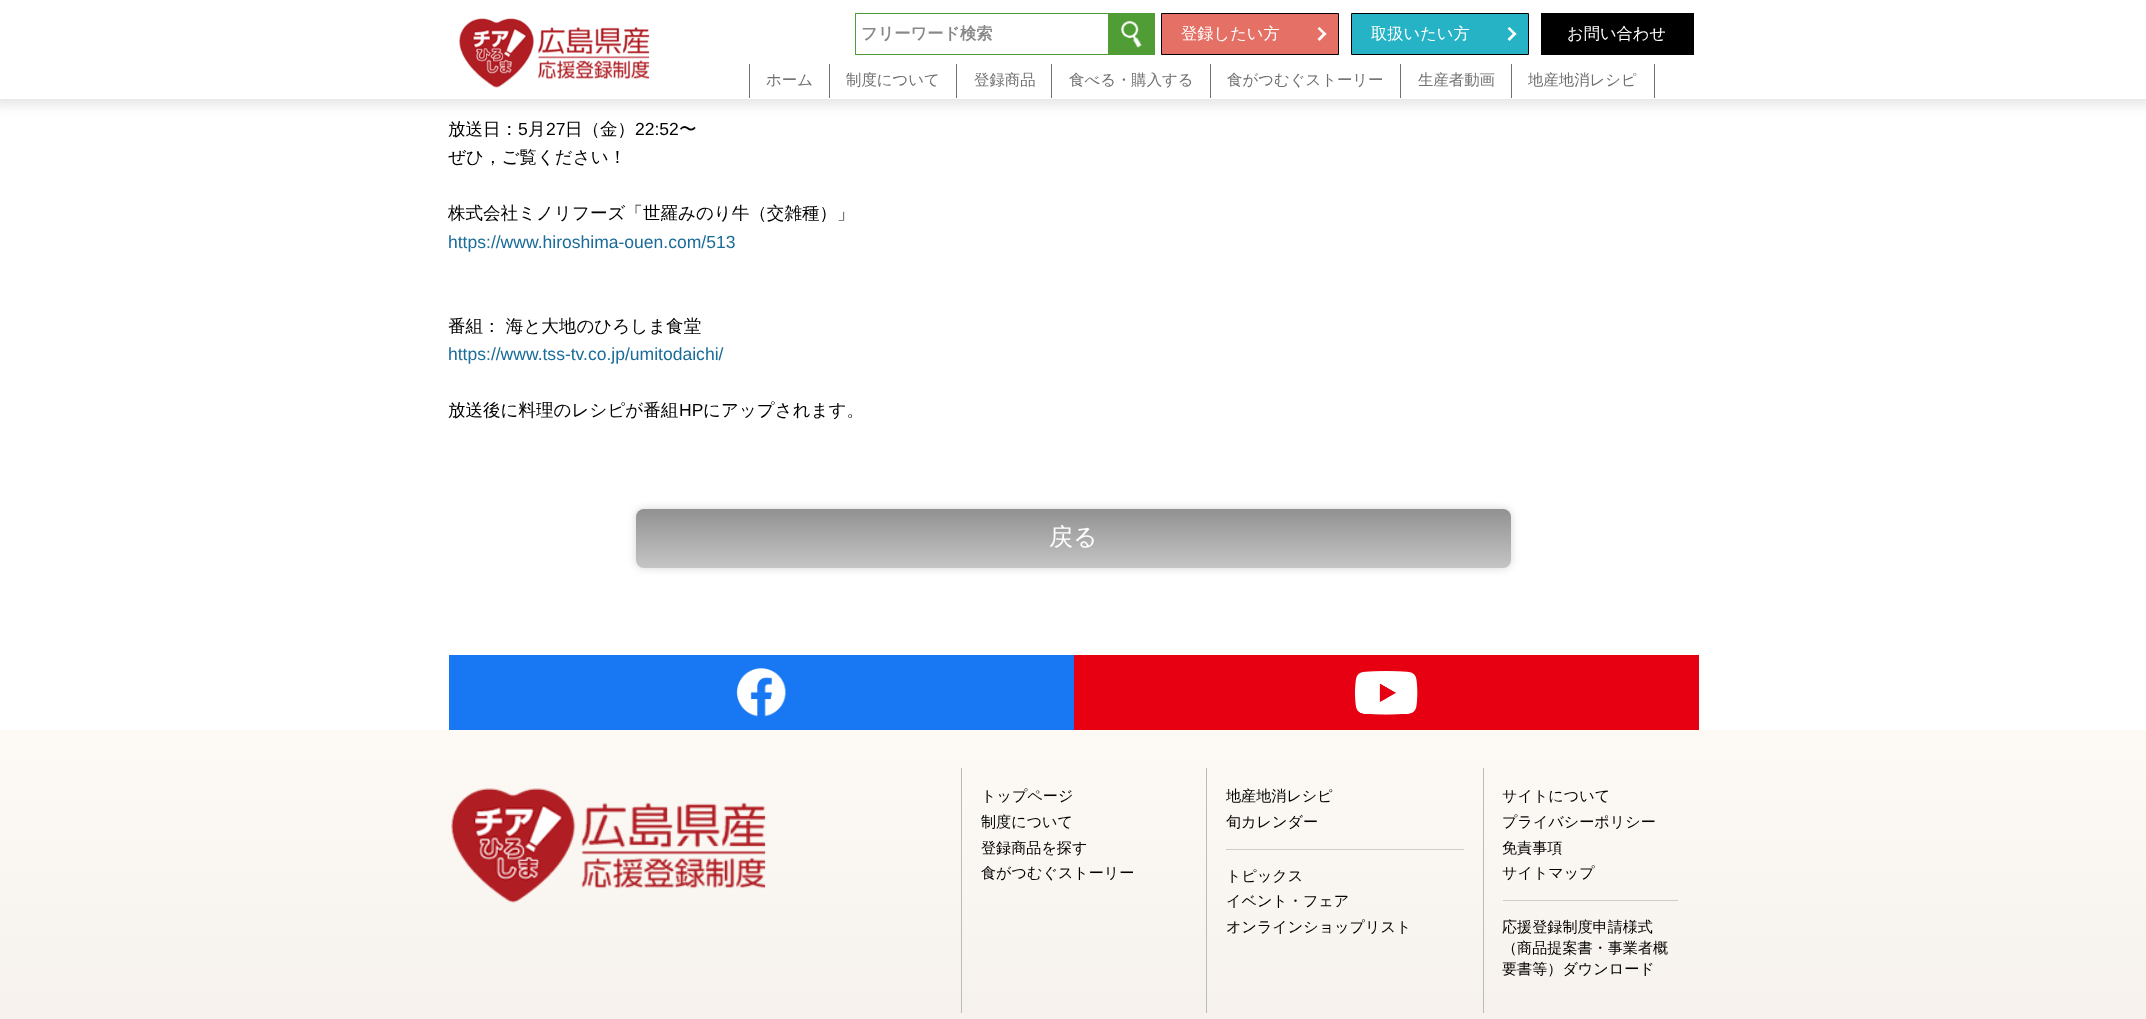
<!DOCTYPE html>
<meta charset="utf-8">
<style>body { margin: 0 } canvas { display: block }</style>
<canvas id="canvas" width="2146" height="1019"></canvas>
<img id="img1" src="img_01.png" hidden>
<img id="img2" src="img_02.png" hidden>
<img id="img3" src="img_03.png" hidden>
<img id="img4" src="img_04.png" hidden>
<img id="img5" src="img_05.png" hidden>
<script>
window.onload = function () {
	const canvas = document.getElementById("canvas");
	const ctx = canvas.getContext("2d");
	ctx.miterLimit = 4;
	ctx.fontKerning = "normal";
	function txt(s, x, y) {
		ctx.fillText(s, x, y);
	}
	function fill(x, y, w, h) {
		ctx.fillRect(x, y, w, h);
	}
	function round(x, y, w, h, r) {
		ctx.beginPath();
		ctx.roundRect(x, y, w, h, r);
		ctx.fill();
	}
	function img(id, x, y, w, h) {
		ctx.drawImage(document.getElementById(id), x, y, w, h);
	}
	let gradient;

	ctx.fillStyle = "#FFFFFF";
	fill(0, 0, 2146, 1019);
	ctx.fillStyle = "rgba(0, 0, 0, 0.1)";
	ctx.filter = "blur(6px)";
	ctx.beginPath();
	ctx.rect(-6, -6, 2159, 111);
	ctx.fill();
	ctx.filter = "none";
	ctx.fillStyle = "#FFFFFF";
	fill(0, 0, 2146, 99);
	img("img1", 459, 18, 191, 70);
	ctx.strokeStyle = "#509D35";
	ctx.strokeRect(855.5, 13.5, 260, 41);
	ctx.fillStyle = "#509D35";
	fill(1108, 13, 47, 42);
	img("img2", 1121, 21, 21, 27);
	ctx.fillStyle = "#E57065";
	ctx.beginPath();
	ctx.rect(1161.5, 13.5, 177, 41);
	ctx.fill();
	ctx.strokeStyle = "#000000";
	ctx.stroke();
	ctx.fillStyle = "#FFFFFF";
	ctx.beginPath();
	ctx.moveTo(1319.5, 27);
	ctx.lineTo(1326.5, 34);
	ctx.lineTo(1324.5, 35.5);
	ctx.lineTo(1317.5, 28.5);
	ctx.closePath();
	ctx.fill();
	ctx.beginPath();
	ctx.moveTo(1324.5, 32);
	ctx.lineTo(1326.5, 34);
	ctx.lineTo(1319.5, 41);
	ctx.lineTo(1317.5, 39);
	ctx.closePath();
	ctx.fill();
	ctx.fillStyle = "#25B3C5";
	ctx.beginPath();
	ctx.rect(1351.5, 13.5, 177, 41);
	ctx.fill();
	ctx.stroke();
	ctx.fillStyle = "#FFFFFF";
	ctx.beginPath();
	ctx.moveTo(1509.5, 27);
	ctx.lineTo(1516.5, 34);
	ctx.lineTo(1514.5, 35.5);
	ctx.lineTo(1507.5, 28.5);
	ctx.closePath();
	ctx.fill();
	ctx.beginPath();
	ctx.moveTo(1514.5, 32);
	ctx.lineTo(1516.5, 34);
	ctx.lineTo(1509.5, 41);
	ctx.lineTo(1507.5, 39);
	ctx.closePath();
	ctx.fill();
	ctx.fillStyle = "#000000";
	fill(1541, 13, 153, 42);
	ctx.fillStyle = "#707070";
	fill(749, 64, 1, 34);
	fill(829, 64, 1, 34);
	fill(956, 64, 1, 34);
	fill(1051, 64, 1, 34);
	fill(1210, 64, 1, 34);
	fill(1400, 64, 1, 34);
	fill(1511, 64, 1, 34);
	fill(1654, 64, 1, 34);
	ctx.fillStyle = "rgba(0, 0, 0, 0.16)";
	ctx.filter = "blur(4px)";
	ctx.beginPath();
	ctx.roundRect(636, 509, 875, 59, 8);
	ctx.fill();
	ctx.filter = "none";
	gradient = ctx.createLinearGradient(1074, 509, 1074, 568);
	gradient.addColorStop(0, "#919191");
	gradient.addColorStop(1, "#C5C5C5");
	ctx.fillStyle = gradient;
	round(636, 509, 875, 59, 8);
	ctx.fillStyle = "#1877F2";
	fill(449, 655, 625, 75);
	img("img3", 736, 668, 50, 49);
	ctx.fillStyle = "#E60012";
	fill(1074, 655, 625, 75);
	img("img4", 1355, 671, 63, 44);
	gradient = ctx.createLinearGradient(1073, 730, 1073, 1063);
	gradient.addColorStop(0, "#FDFAF5");
	gradient.addColorStop(1, "#F5F0EB");
	ctx.fillStyle = gradient;
	fill(0, 730, 2146, 289);
	img("img5", 451, 788, 315, 115);
	ctx.fillStyle = "#BBBBBB";
	fill(961, 768, 1, 245);
	fill(1206, 768, 1, 245);
	ctx.fillStyle = "#CCCCCC";
	fill(1226, 849, 238, 1);
	ctx.fillStyle = "#BBBBBB";
	fill(1483, 768, 1, 245);
	ctx.fillStyle = "#CCCCCC";
	fill(1503, 900, 175, 1);
	ctx.font = "bold 16.25px WenQuanYi Zen Hei";
	ctx.fillStyle = "#888888";
	txt("フリーワード検索", 861, 39);
	ctx.font = "500 16.25px WenQuanYi Zen Hei";
	ctx.fillStyle = "#FFFFFF";
	txt("登録したい方", 1181, 39);
	txt("取扱いたい方", 1371, 39);
	txt("お問い合わせ", 1567, 39);
	ctx.font = "500 15.4px WenQuanYi Zen Hei";
	ctx.fillStyle = "#707070";
	txt("ホーム", 766, 85);
	txt("制度について", 846, 85);
	txt("登録商品", 974, 85);
	txt("食べる・購入する", 1069, 85);
	txt("食がつむぐストーリー", 1227, 85);
	txt("生産者動画", 1418, 85);
	txt("地産地消レシピ", 1528, 85);
	ctx.font = "500 17.55px WenQuanYi Zen Hei";
	ctx.fillStyle = "#000000";
	txt("放送日：", 448, 135);
	ctx.font = "17.55px Liberation Sans";
	txt("5", 518, 135);
	ctx.font = "500 17.55px WenQuanYi Zen Hei";
	txt("月", 528, 135);
	ctx.font = "17.55px Liberation Sans";
	txt("27", 546, 135);
	ctx.font = "500 17.55px WenQuanYi Zen Hei";
	txt("日（金）", 565, 135);
	ctx.font = "17.55px Liberation Sans";
	txt("22:52", 635, 135);
	ctx.font = "500 17.55px WenQuanYi Zen Hei";
	txt("〜", 679, 135);
	txt("ぜひ，ご覧ください！", 448, 163);
	txt("株式会社ミノリフーズ「世羅みのり牛（交雑種）」", 448, 219);
	ctx.font = "17.55px Liberation Sans";
	ctx.fillStyle = "#196B99";
	txt("https://www.hiroshima-ouen.com/513", 448, 248);
	ctx.font = "500 17.55px WenQuanYi Zen Hei";
	ctx.fillStyle = "#000000";
	txt("番組： 海と大地のひろしま食堂", 448, 332);
	ctx.font = "17.55px Liberation Sans";
	ctx.fillStyle = "#196B99";
	txt("https://www.tss-tv.co.jp/umitodaichi/", 448, 360);
	ctx.font = "500 17.55px WenQuanYi Zen Hei";
	ctx.fillStyle = "#000000";
	txt("放送後に料理のレシピが番組", 448, 416);
	ctx.font = "17.55px Liberation Sans";
	txt("HP", 679, 416);
	ctx.font = "500 17.55px WenQuanYi Zen Hei";
	txt("にアップされます。", 703, 416);
	ctx.font = "500 24px WenQuanYi Zen Hei";
	ctx.fillStyle = "#FFFFFF";
	txt("戻る", 1049, 545);
	ctx.font = "500 15.1px WenQuanYi Zen Hei";
	ctx.fillStyle = "#000000";
	txt("トップページ", 981, 801);
	txt("制度について", 981, 827);
	txt("登録商品を探す", 981, 853);
	txt("食がつむぐストーリー", 981, 878);
	txt("地産地消レシピ", 1226, 801);
	txt("旬カレンダー", 1226, 827);
	txt("トピックス", 1226, 881);
	txt("イベント・フェア", 1226, 906);
	txt("オンラインショップリスト", 1226, 932);
	txt("サイトについて", 1502, 801);
	txt("プライバシーポリシー", 1502, 827);
	txt("免責事項", 1502, 853);
	txt("サイトマップ", 1502, 878);
	txt("応援登録制度申請様式", 1502, 932);
	txt("（商品提案書・事業者概", 1502, 953);
	txt("要書等）ダウンロード", 1502, 974);
};
</script>
